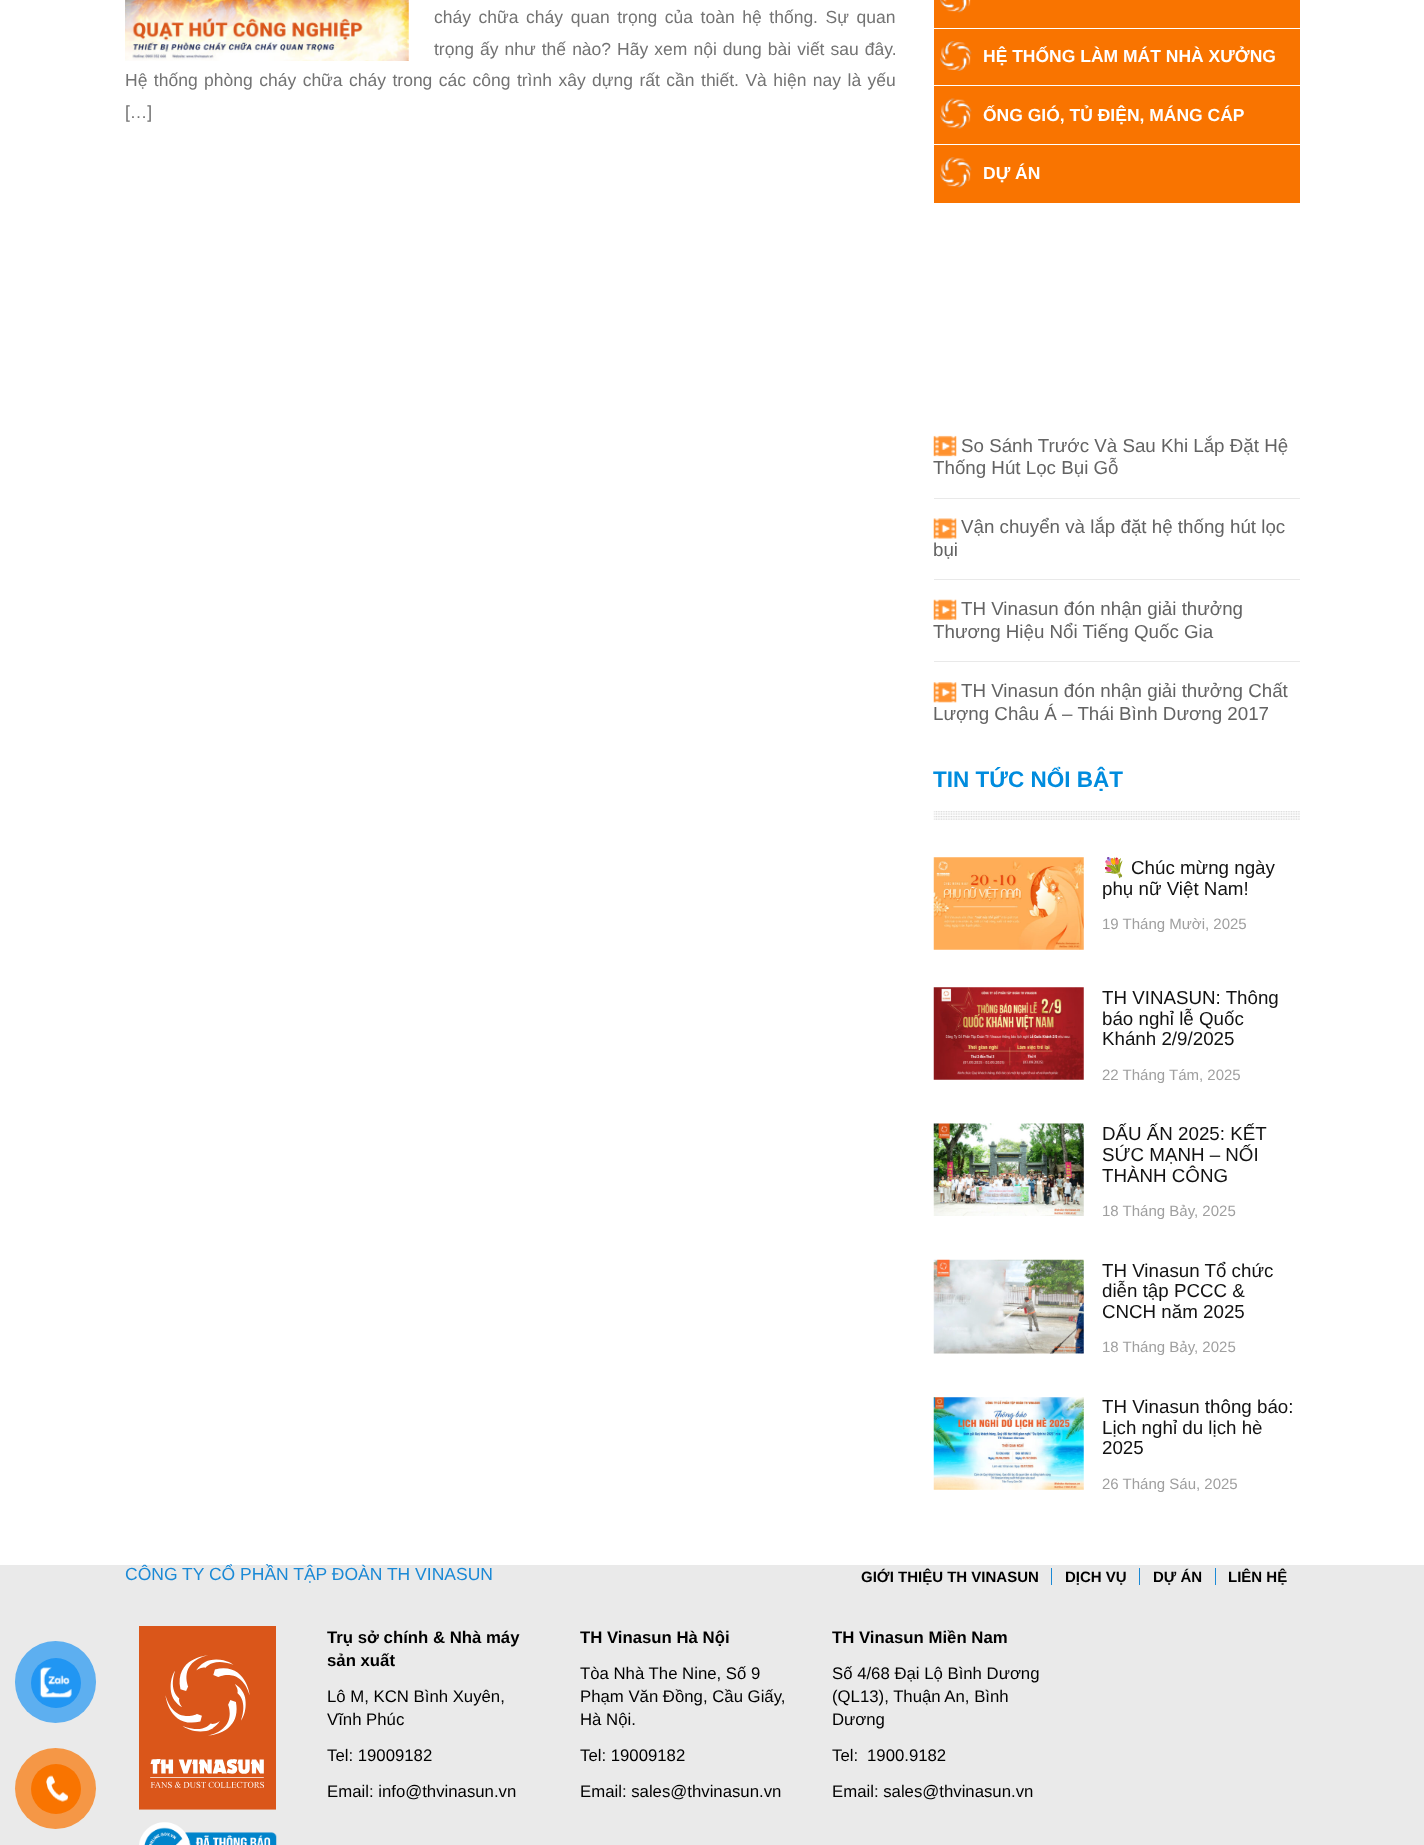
<!DOCTYPE html>
<meta charset="utf-8">
<style>body { margin: 0 } canvas { display: block }</style>
<canvas id="canvas" width="1424" height="1845"></canvas>
<img id="img1" src="img_01.png" hidden>
<img id="img2" src="img_02.png" hidden>
<img id="img3" src="img_03.png" hidden>
<img id="img4" src="img_04.png" hidden>
<img id="img5" src="img_05.png" hidden>
<img id="img6" src="img_06.png" hidden>
<img id="img7" src="img_07.png" hidden>
<img id="img8" src="img_08.png" hidden>
<img id="img9" src="img_09.png" hidden>
<img id="img10" src="img_10.png" hidden>
<img id="img11" src="img_11.png" hidden>
<img id="img12" src="img_12.png" hidden>
<img id="img13" src="img_13.png" hidden>
<img id="img14" src="img_14.png" hidden>
<img id="img15" src="img_15.png" hidden>
<img id="img16" src="img_16.png" hidden>
<img id="img17" src="img_17.png" hidden>
<img id="img18" src="img_18.png" hidden>
<img id="img19" src="img_19.png" hidden>
<script>
window.onload = function () {
	const canvas = document.getElementById("canvas");
	const ctx = canvas.getContext("2d");
	ctx.miterLimit = 4;
	ctx.fontKerning = "normal";
	function txt(s, x, y) {
		ctx.fillText(s, x, y);
	}
	function fill(x, y, w, h) {
		ctx.fillRect(x, y, w, h);
	}
	function round(x, y, w, h, r) {
		ctx.beginPath();
		ctx.roundRect(x, y, w, h, r);
		ctx.fill();
	}
	function img(id, x, y, w, h) {
		ctx.drawImage(document.getElementById(id), x, y, w, h);
	}

	ctx.fillStyle = "#FFFFFF";
	fill(0, 0, 1424, 1845);
	img("img1", 125, 0, 284, 61);
	ctx.fillStyle = "#F97400";
	fill(934, 0, 366, 28);
	img("img2", 940, 0, 31, 13);
	fill(934, 29, 366, 56);
	img("img3", 940, 41, 32, 30);
	fill(934, 86, 366, 58);
	img("img4", 940, 98, 32, 31);
	fill(934, 145, 366, 58);
	img("img5", 940, 157, 32, 31);
	ctx.fillStyle = "#E9E9E9";
	fill(934, 498, 366, 1);
	img("img6", 933, 435, 24, 22);
	fill(934, 579, 366, 1);
	img("img7", 933, 518, 24, 21);
	fill(934, 661, 366, 1);
	img("img8", 933, 599, 24, 21);
	img("img9", 933, 682, 24, 21);
	img("img10", 933, 811, 367, 9);
	img("img11", 933, 857, 151, 93);
	img("img12", 933, 987, 151, 93);
	img("img13", 933, 1123, 151, 93);
	img("img14", 933, 1259, 151, 95);
	img("img15", 933, 1397, 151, 93);
	ctx.fillStyle = "#EAEAEA";
	fill(0, 1565, 1424, 280);
	ctx.fillStyle = "#5DAFF0";
	round(15, 1641, 81, 82, 40.5);
	ctx.fillStyle = "#2196F3";
	ctx.beginPath();
	ctx.arc(56, 1683, 25, 0, Math.PI * 2);
	ctx.fill();
	img("img16", 39, 1667, 33, 31);
	ctx.fillStyle = "#F59746";
	ctx.beginPath();
	ctx.arc(55.5, 1788.5, 40.5, 0, Math.PI * 2);
	ctx.fill();
	ctx.fillStyle = "#F97400";
	ctx.beginPath();
	ctx.arc(56, 1789, 25, 0, Math.PI * 2);
	ctx.fill();
	img("img17", 46, 1775, 22, 27);
	ctx.fillStyle = "#1A89D6";
	fill(1051, 1568, 1, 17);
	fill(1139, 1568, 1, 17);
	fill(1215, 1568, 1, 17);
	img("img18", 139, 1626, 137, 184);
	img("img19", 139, 1822, 138, 23);
	ctx.wordSpacing = "2.75px";
	ctx.font = "17.5px Liberation Sans";
	ctx.fillStyle = "#737373";
	txt("cháy chữa cháy quan trọng của toàn hệ thống. Sự quan", 434, 23);
	ctx.wordSpacing = "1.2px";
	txt("trọng ấy như thế nào? Hãy xem nội dung bài viết sau đây.", 434, 55);
	ctx.wordSpacing = "1.6px";
	txt("Hệ thống phòng cháy chữa cháy trong các công trình xây dựng rất cần thiết. Và hiện nay là yếu", 125, 86);
	ctx.wordSpacing = "0px";
	txt("[…]", 125, 118);
	ctx.font = "bold 17.5px Liberation Sans";
	ctx.fillStyle = "#FFFFFF";
	txt("HỆ THỐNG LÀM MÁT NHÀ XƯỞNG", 983, 62);
	txt("ỐNG GIÓ, TỦ ĐIỆN, MÁNG CÁP", 983, 121);
	txt("DỰ ÁN", 983, 179);
	ctx.font = "18.75px Liberation Sans";
	ctx.fillStyle = "#636363";
	txt("So Sánh Trước Và Sau Khi Lắp Đặt Hệ", 961, 452);
	txt("Thống Hút Lọc Bụi Gỗ", 933, 474);
	txt("Vận chuyển và lắp đặt hệ thống hút lọc", 961, 533);
	txt("bụi", 933, 556);
	txt("TH Vinasun đón nhận giải thưởng", 961, 615);
	txt("Thương Hiệu Nổi Tiếng Quốc Gia", 933, 638);
	txt("TH Vinasun đón nhận giải thưởng Chất", 961, 697);
	txt("Lượng Châu Á – Thái Bình Dương 2017", 933, 720);
	ctx.font = "bold 22.5px Liberation Sans";
	ctx.fillStyle = "#008CDE";
	txt("TIN TỨC NỔI BẬT", 933, 787);
	ctx.font = "18.75px Noto Color Emoji";
	ctx.fillStyle = "#121212";
	txt("💐", 1102, 874);
	ctx.font = "18.75px Liberation Sans";
	txt("Chúc mừng ngày", 1131, 874);
	txt("phụ nữ Việt Nam!", 1102, 895);
	ctx.font = "15px Liberation Sans";
	ctx.fillStyle = "#9F9F9F";
	txt("19 Tháng Mười, 2025", 1102, 929);
	ctx.font = "18.75px Liberation Sans";
	ctx.fillStyle = "#121212";
	txt("TH VINASUN: Thông", 1102, 1004);
	txt("báo nghỉ lễ Quốc", 1102, 1025);
	txt("Khánh 2/9/2025", 1102, 1045);
	ctx.font = "15px Liberation Sans";
	ctx.fillStyle = "#9F9F9F";
	txt("22 Tháng Tám, 2025", 1102, 1080);
	ctx.font = "18.75px Liberation Sans";
	ctx.fillStyle = "#121212";
	txt("DẤU ẤN 2025: KẾT", 1102, 1140);
	txt("SỨC MẠNH – NỐI", 1102, 1161);
	txt("THÀNH CÔNG", 1102, 1182);
	ctx.font = "15px Liberation Sans";
	ctx.fillStyle = "#9F9F9F";
	txt("18 Tháng Bảy, 2025", 1102, 1216);
	ctx.font = "18.75px Liberation Sans";
	ctx.fillStyle = "#121212";
	txt("TH Vinasun Tổ chức", 1102, 1277);
	txt("diễn tập PCCC &", 1102, 1297);
	txt("CNCH năm 2025", 1102, 1318);
	ctx.font = "15px Liberation Sans";
	ctx.fillStyle = "#9F9F9F";
	txt("18 Tháng Bảy, 2025", 1102, 1352);
	ctx.font = "18.75px Liberation Sans";
	ctx.fillStyle = "#121212";
	txt("TH Vinasun thông báo:", 1102, 1413);
	txt("Lịch nghỉ du lịch hè", 1102, 1434);
	txt("2025", 1102, 1454);
	ctx.font = "15px Liberation Sans";
	ctx.fillStyle = "#9F9F9F";
	txt("26 Tháng Sáu, 2025", 1102, 1489);
	ctx.font = "17.5px Liberation Sans";
	ctx.fillStyle = "#1A89D6";
	txt("CÔNG TY CỔ PHẦN TẬP ĐOÀN TH VINASUN", 125, 1580);
	ctx.font = "bold 15px Liberation Sans";
	ctx.fillStyle = "#000000";
	txt("GIỚI THIỆU TH VINASUN", 861, 1582);
	txt("DỊCH VỤ", 1065, 1582);
	txt("DỰ ÁN", 1153, 1582);
	txt("LIÊN HỆ", 1228, 1582);
	ctx.font = "bold 16.75px Liberation Sans";
	txt("Trụ sở chính & Nhà máy", 327, 1643);
	txt("sản xuất", 327, 1666);
	ctx.font = "16.75px Liberation Sans";
	txt("Lô M, KCN Bình Xuyên,", 327, 1702);
	txt("Vĩnh Phúc", 327, 1725);
	txt("Tel: 19009182", 327, 1761);
	txt("Email: info@thvinasun.vn", 327, 1797);
	ctx.font = "bold 16.75px Liberation Sans";
	txt("TH Vinasun Hà Nội", 580, 1643);
	ctx.font = "16.75px Liberation Sans";
	txt("Tòa Nhà The Nine, Số 9", 580, 1679);
	txt("Phạm Văn Đồng, Cầu Giấy,", 580, 1702);
	txt("Hà Nội.", 580, 1725);
	txt("Tel: 19009182", 580, 1761);
	txt("Email: sales@thvinasun.vn", 580, 1797);
	ctx.font = "bold 16.75px Liberation Sans";
	txt("TH Vinasun Miền Nam", 832, 1643);
	ctx.font = "16.75px Liberation Sans";
	txt("Số 4/68 Đại Lộ Bình Dương", 832, 1679);
	txt("(QL13), Thuận An, Bình", 832, 1702);
	txt("Dương", 832, 1725);
	txt("Tel:", 832, 1761);
	txt("1900.9182", 867, 1761);
	txt("Email: sales@thvinasun.vn", 832, 1797);
};
</script>
